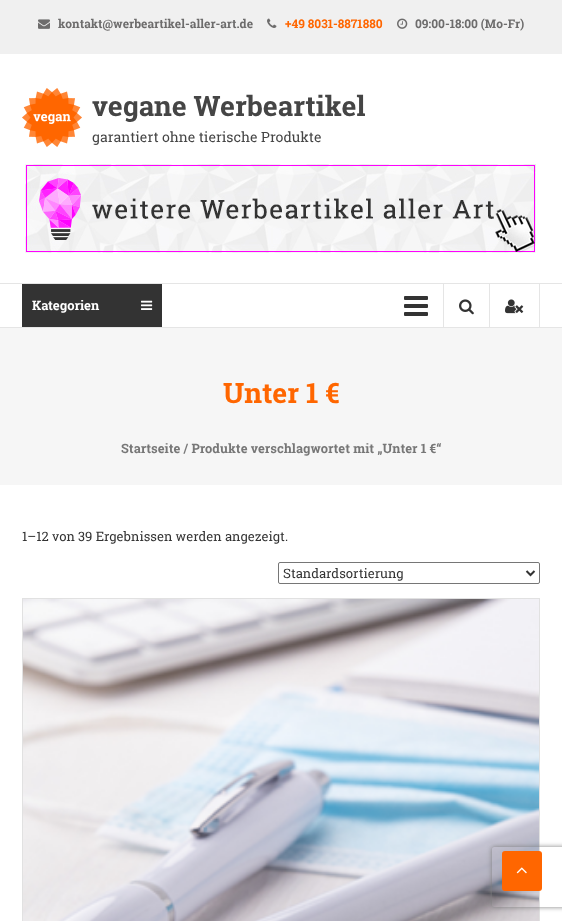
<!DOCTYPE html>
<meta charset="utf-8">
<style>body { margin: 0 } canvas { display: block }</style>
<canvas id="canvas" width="562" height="921"></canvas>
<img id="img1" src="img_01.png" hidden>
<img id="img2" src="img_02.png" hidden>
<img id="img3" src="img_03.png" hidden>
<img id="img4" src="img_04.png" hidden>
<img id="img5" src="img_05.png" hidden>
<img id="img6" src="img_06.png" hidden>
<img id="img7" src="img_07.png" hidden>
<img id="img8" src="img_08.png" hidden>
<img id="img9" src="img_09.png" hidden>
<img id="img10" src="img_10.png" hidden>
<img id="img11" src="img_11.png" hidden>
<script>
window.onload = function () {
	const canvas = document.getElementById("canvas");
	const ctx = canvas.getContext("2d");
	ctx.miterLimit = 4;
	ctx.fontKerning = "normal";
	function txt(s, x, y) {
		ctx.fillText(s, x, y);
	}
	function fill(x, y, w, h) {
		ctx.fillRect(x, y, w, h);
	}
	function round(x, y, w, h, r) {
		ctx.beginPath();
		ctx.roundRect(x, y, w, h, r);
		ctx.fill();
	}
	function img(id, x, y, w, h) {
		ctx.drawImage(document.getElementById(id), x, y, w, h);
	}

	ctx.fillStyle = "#FFFFFF";
	fill(0, 0, 562, 921);
	ctx.fillStyle = "#F0F0F0";
	fill(0, 0, 562, 54);
	img("img1", 38, 19, 12, 10);
	img("img2", 267, 18, 10, 10);
	img("img3", 397, 18, 11, 11);
	img("img4", 22, 88, 60, 59);
	img("img5", 25, 164, 511, 89);
	ctx.fillStyle = "#E5E5E5";
	fill(0, 283, 562, 1);
	fill(0, 327, 562, 1);
	ctx.fillStyle = "#333333";
	fill(22, 284, 140, 43);
	img("img6", 141, 300, 12, 10);
	img("img7", 404, 296, 24, 20);
	ctx.fillStyle = "#E5E5E5";
	fill(443, 284, 1, 43);
	img("img8", 459, 299, 15, 16);
	fill(539, 284, 1, 43);
	fill(489, 284, 1, 43);
	img("img9", 505, 299, 19, 15);
	ctx.fillStyle = "#F6F6F6";
	fill(0, 328, 562, 157);
	ctx.beginPath();
	ctx.roundRect(278.5, 562.5, 261, 21, 1.5);
	ctx.strokeStyle = "#767676";
	ctx.stroke();
	ctx.beginPath();
	ctx.moveTo(526.5, 571);
	ctx.lineTo(530.5, 575);
	ctx.lineTo(534.5, 571);
	ctx.strokeStyle = "#333333";
	ctx.lineWidth = 2;
	ctx.stroke();
	ctx.strokeStyle = "#E1E1E1";
	ctx.lineWidth = 1;
	ctx.strokeRect(22.5, 598.5, 517, 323);
	img("img10", 23, 599, 516, 322);
	ctx.fillStyle = "#FF6600";
	round(502, 851, 40, 40, 3);
	img("img11", 516, 867, 11, 7);
	ctx.save();
	ctx.beginPath();
	ctx.moveTo(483, 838);
	ctx.lineTo(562, 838);
	ctx.lineTo(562, 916);
	ctx.lineTo(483, 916);
	ctx.closePath();
	ctx.moveTo(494, 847);
	ctx.lineTo(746, 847);
	ctx.bezierCurveTo(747, 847, 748, 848, 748, 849);
	ctx.lineTo(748, 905);
	ctx.bezierCurveTo(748, 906, 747, 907, 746, 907);
	ctx.lineTo(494, 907);
	ctx.bezierCurveTo(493, 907, 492, 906, 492, 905);
	ctx.lineTo(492, 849);
	ctx.bezierCurveTo(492, 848, 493, 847, 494, 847);
	ctx.closePath();
	ctx.clip("evenodd");
	ctx.fillStyle = "#808080";
	ctx.filter = "blur(2.5px)";
	ctx.beginPath();
	ctx.roundRect(492, 847, 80, 60, 2);
	ctx.fill();
	ctx.filter = "none";
	ctx.restore();
	ctx.font = "bold 12px Roboto Slab";
	ctx.fillStyle = "#6D6C6C";
	txt("kontakt@werbeartikel-aller-art.de", 58, 28);
	ctx.fillStyle = "#FF6600";
	txt("+49 8031-8871880", 285, 28);
	ctx.fillStyle = "#6D6C6C";
	txt("09:00-18:00 (Mo-Fr)", 415, 28);
	ctx.font = "bold 28px Roboto Slab";
	ctx.fillStyle = "#454545";
	txt("vegane Werbeartikel", 92, 116);
	ctx.font = "14px Roboto Slab";
	txt("garantiert ohne tierische Produkte", 92, 142);
	ctx.font = "bold 13px Roboto Slab";
	ctx.fillStyle = "#FFFFFF";
	txt("Kategorien", 32, 310);
	ctx.font = "bold 28px Roboto Slab";
	ctx.fillStyle = "#FF6600";
	txt("Unter 1 €", 223, 403);
	ctx.font = "bold 12.9px Roboto Slab";
	ctx.fillStyle = "#777777";
	txt("Startseite / Produkte verschlagwortet mit „Unter 1 €“", 121, 453);
	ctx.font = "13px Roboto Slab";
	ctx.fillStyle = "#333333";
	txt("1–12 von 39 Ergebnissen werden angezeigt.", 22, 541);
	txt("Standardsortierung", 283, 578);
};
</script>
